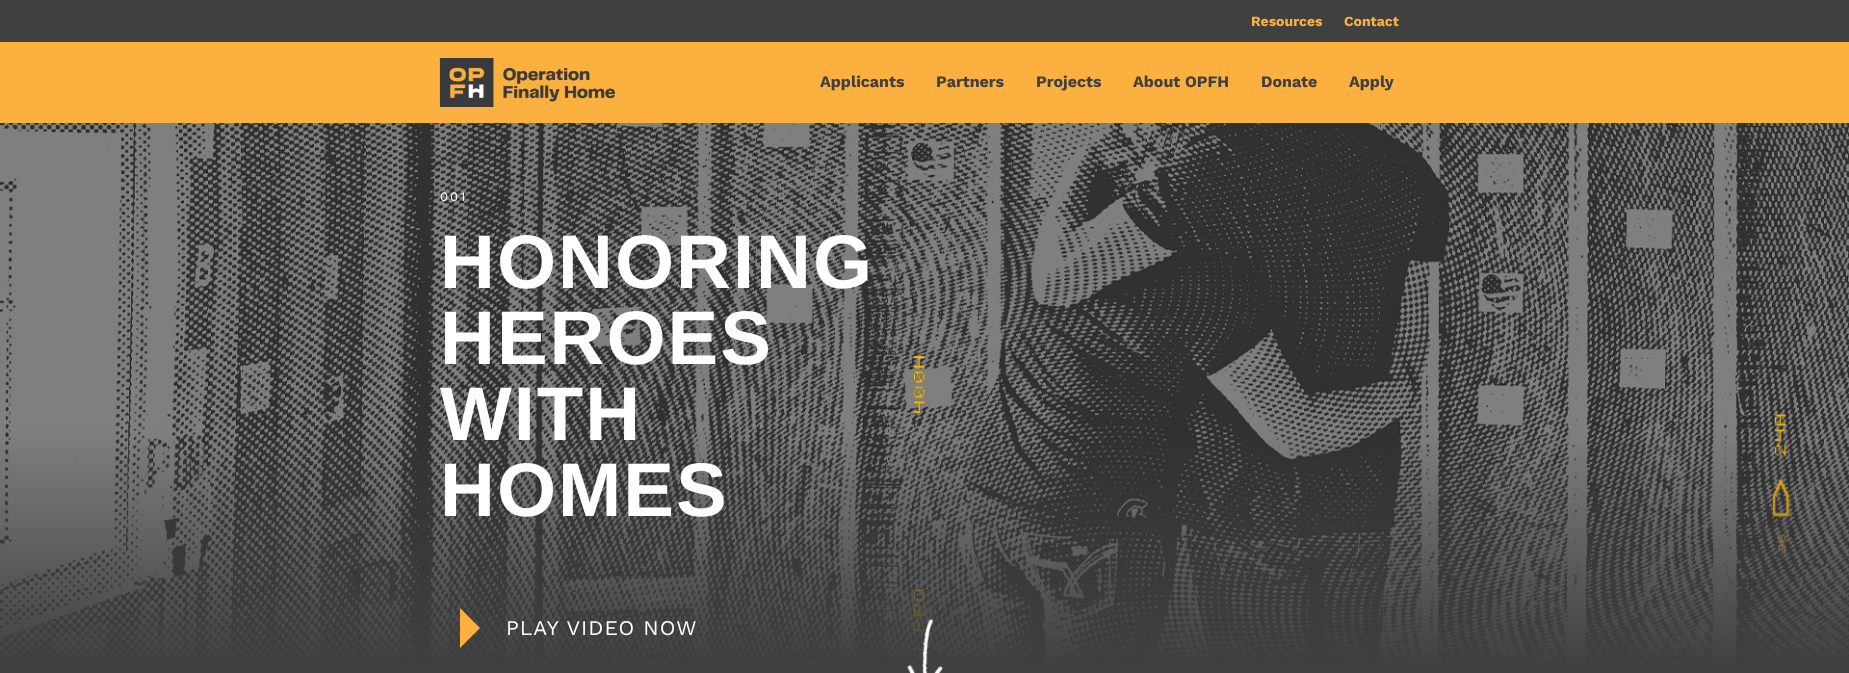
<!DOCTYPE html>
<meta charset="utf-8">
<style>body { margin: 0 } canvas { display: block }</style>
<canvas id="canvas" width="1849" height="673"></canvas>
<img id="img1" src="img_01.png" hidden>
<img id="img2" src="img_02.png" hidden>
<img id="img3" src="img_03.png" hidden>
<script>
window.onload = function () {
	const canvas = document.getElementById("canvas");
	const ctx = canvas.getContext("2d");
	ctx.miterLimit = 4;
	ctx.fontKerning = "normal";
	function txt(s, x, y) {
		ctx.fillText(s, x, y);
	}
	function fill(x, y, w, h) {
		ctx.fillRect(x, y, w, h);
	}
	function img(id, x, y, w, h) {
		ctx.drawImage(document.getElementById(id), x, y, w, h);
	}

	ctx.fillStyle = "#FFFFFF";
	fill(0, 0, 1849, 673);
	ctx.fillStyle = "#FCB040";
	fill(0, 42, 1849, 81);
	ctx.fillStyle = "#404041";
	fill(0, 0, 1849, 42);
	img("img1", 439, 58, 176, 49);
	img("img2", 0, 123, 1849, 550);
	ctx.fillStyle = "#FCB040";
	ctx.beginPath();
	ctx.moveTo(460, 648);
	ctx.lineTo(460, 608);
	ctx.lineTo(480, 628);
	ctx.closePath();
	ctx.fill();
	img("img3", 907, 619, 36, 54);
	ctx.font = "bold 14px Work Sans";
	txt("Resources", 1251, 26);
	txt("Contact", 1344, 26);
	ctx.font = "bold 16px Work Sans";
	ctx.fillStyle = "#404041";
	txt("Applicants", 820, 87);
	txt("Partners", 936, 87);
	txt("Projects", 1036, 87);
	txt("About OPFH", 1133, 87);
	txt("Donate", 1261, 87);
	txt("Apply", 1349, 87);
	ctx.letterSpacing = "2px";
	ctx.font = "13px Work Sans";
	ctx.fillStyle = "#FFFFFF";
	txt("001", 440, 201);
	ctx.font = "bold 76px Liberation Sans";
	txt("HONORING", 440, 288);
	txt("HEROES", 440, 364);
	txt("WITH", 440, 440);
	txt("HOMES", 440, 516);
	ctx.letterSpacing = "1px";
	ctx.font = "21px Work Sans";
	txt("PLAY VIDEO NOW", 506, 635);
};
</script>
